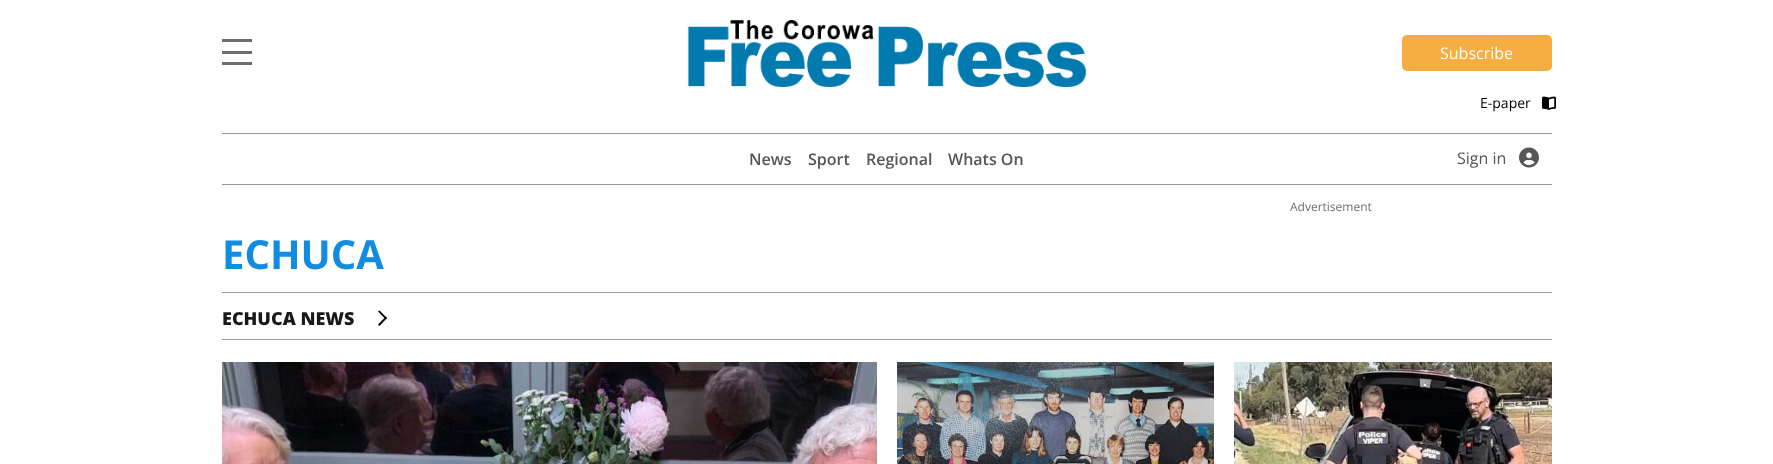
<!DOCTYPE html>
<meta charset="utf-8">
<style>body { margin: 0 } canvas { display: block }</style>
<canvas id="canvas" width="1773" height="464"></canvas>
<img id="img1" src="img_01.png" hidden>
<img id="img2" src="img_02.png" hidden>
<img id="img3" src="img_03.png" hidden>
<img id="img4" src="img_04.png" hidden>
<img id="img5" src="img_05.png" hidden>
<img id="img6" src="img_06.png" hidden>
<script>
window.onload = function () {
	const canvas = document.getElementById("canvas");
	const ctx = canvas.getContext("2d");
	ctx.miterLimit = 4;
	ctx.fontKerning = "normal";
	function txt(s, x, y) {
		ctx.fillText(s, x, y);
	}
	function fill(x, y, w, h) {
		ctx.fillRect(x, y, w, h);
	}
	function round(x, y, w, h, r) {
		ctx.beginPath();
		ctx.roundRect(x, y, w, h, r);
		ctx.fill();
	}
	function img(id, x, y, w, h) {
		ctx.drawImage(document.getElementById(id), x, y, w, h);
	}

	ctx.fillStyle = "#FFFFFF";
	fill(0, 0, 1773, 464);
	ctx.fillStyle = "#6E6E6E";
	fill(222, 39, 30, 3);
	fill(222, 62, 30, 3);
	fill(222, 51, 30, 3);
	img("img1", 687, 20, 400, 67);
	ctx.fillStyle = "#F6AE43";
	round(1402, 35, 150, 36, 5);
	img("img2", 1542, 96, 14, 14);
	ctx.fillStyle = "#979797";
	fill(222, 133, 1330, 1);
	fill(222, 184, 1330, 1);
	img("img3", 1519, 147, 20, 21);
	fill(222, 292, 1330, 1);
	fill(222, 339, 1330, 1);
	ctx.fillStyle = "#000000";
	ctx.beginPath();
	ctx.moveTo(379.5, 310.5);
	ctx.lineTo(387, 318);
	ctx.lineTo(386, 319.5);
	ctx.lineTo(378, 311.5);
	ctx.closePath();
	ctx.fill();
	ctx.beginPath();
	ctx.moveTo(386, 316.5);
	ctx.lineTo(387, 318);
	ctx.lineTo(379.5, 326);
	ctx.lineTo(378, 324.5);
	ctx.closePath();
	ctx.fill();
	img("img4", 222, 362, 655, 102);
	img("img5", 897, 362, 317, 102);
	img("img6", 1234, 362, 318, 102);
	ctx.font = "16px Open Sans";
	ctx.fillStyle = "#FFFFFF";
	txt("Subscribe", 1440, 59);
	ctx.font = "14px Open Sans";
	ctx.fillStyle = "#000000";
	txt("E-paper", 1480, 108);
	ctx.font = "600 16px Open Sans";
	ctx.fillStyle = "#565656";
	txt("News", 749, 165);
	txt("Sport", 808, 165);
	txt("Regional", 866, 165);
	txt("Whats On", 948, 165);
	ctx.font = "16px Open Sans";
	txt("Sign in", 1457, 164);
	ctx.font = "12px Open Sans";
	ctx.fillStyle = "#6E6E6E";
	txt("Advertisement", 1290, 211);
	ctx.font = "bold 40px Open Sans";
	ctx.fillStyle = "#118CE0";
	txt("ECHUCA", 222, 269);
	ctx.font = "800 18px Open Sans";
	ctx.fillStyle = "#191919";
	txt("ECHUCA NEWS", 222, 325);
};
</script>
